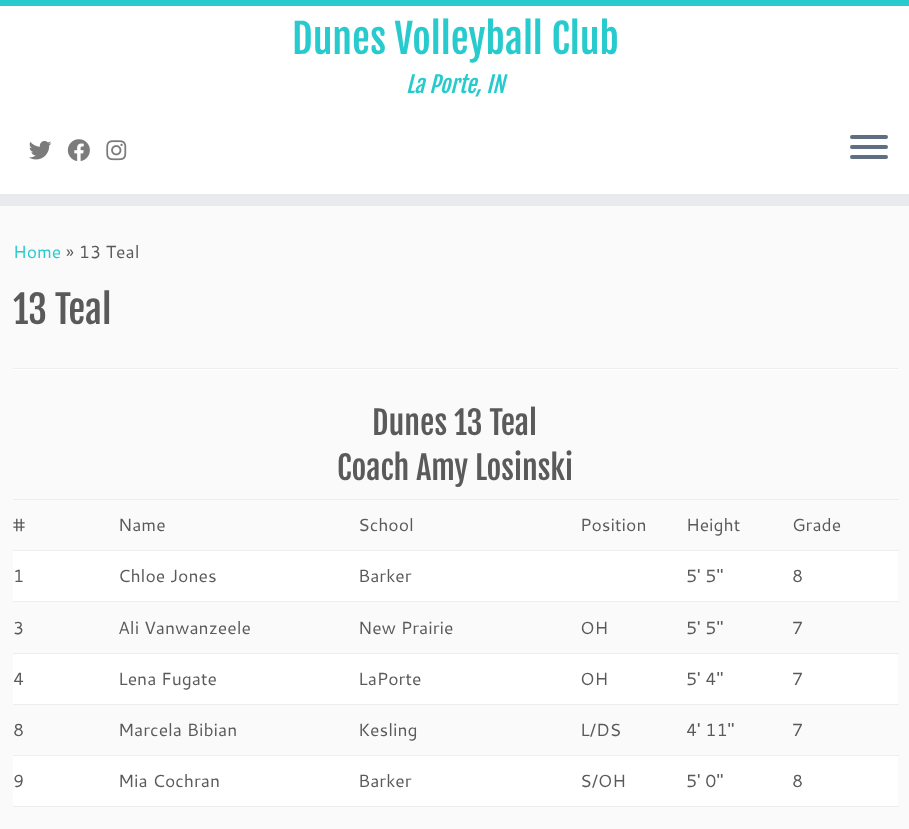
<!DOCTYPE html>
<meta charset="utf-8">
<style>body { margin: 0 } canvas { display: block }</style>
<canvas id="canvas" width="909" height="829"></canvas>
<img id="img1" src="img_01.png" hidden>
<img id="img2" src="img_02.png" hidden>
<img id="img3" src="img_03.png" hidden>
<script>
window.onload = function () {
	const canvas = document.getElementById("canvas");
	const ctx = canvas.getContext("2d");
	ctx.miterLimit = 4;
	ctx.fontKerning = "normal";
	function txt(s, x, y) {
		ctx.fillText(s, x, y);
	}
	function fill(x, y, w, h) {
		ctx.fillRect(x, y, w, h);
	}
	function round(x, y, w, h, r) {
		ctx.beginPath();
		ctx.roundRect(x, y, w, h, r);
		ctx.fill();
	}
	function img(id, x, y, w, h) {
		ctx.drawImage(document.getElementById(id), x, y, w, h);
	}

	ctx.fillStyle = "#FAFAFA";
	fill(0, 0, 909, 829);
	ctx.fillStyle = "#FFFFFF";
	fill(0, 6, 909, 188);
	ctx.fillStyle = "#27CBCD";
	fill(0, 0, 909, 6);
	ctx.fillStyle = "#E9EAEE";
	fill(0, 194, 909, 12);
	img("img1", 29, 141, 23, 19);
	img("img2", 67, 139, 23, 22);
	img("img3", 106, 140, 21, 21);
	ctx.fillStyle = "#5F6F81";
	round(850, 135, 38, 4, 2);
	round(850, 145, 38, 4, 2);
	round(850, 155, 38, 4, 2);
	ctx.fillStyle = "#EEEEEE";
	fill(13, 368, 885, 1);
	ctx.fillStyle = "#FFFFFF";
	fill(13, 369, 885, 1);
	ctx.fillStyle = "#EDEDED";
	fill(13, 499, 886, 1);
	ctx.fillStyle = "#FFFFFF";
	fill(13, 551, 885, 50);
	ctx.fillStyle = "#EDEDED";
	fill(13, 550, 886, 1);
	fill(13, 601, 886, 1);
	ctx.fillStyle = "#FFFFFF";
	fill(13, 654, 885, 50);
	ctx.fillStyle = "#EDEDED";
	fill(13, 653, 886, 1);
	fill(13, 704, 886, 1);
	ctx.fillStyle = "#FFFFFF";
	fill(13, 756, 885, 50);
	ctx.fillStyle = "#EDEDED";
	fill(13, 755, 886, 1);
	fill(13, 806, 886, 1);
	ctx.font = "40px Fjalla One";
	ctx.fillStyle = "#27CBCD";
	txt("Dunes Volleyball Club", 292, 54);
	ctx.font = "italic 22.5px Fjalla One";
	txt("La Porte, IN", 406, 93);
	ctx.font = "17.5px Cantarell";
	txt("Home", 13, 258);
	ctx.fillStyle = "#5A5A5A";
	txt("» 13 Teal", 66, 258);
	ctx.font = "38px Fjalla One";
	txt("13 Teal", 13, 324);
	ctx.font = "32px Fjalla One";
	txt("Dunes 13 Teal", 372, 435);
	txt("Coach Amy Losinski", 337, 480);
	ctx.font = "17.5px Cantarell";
	txt("#", 13, 531);
	txt("Name", 118, 531);
	txt("School", 358, 531);
	txt("Position", 580, 531);
	txt("Height", 686, 531);
	txt("Grade", 792, 531);
	txt("1", 13, 582);
	txt("Chloe Jones", 118, 582);
	txt("Barker", 358, 582);
	txt("5′ 5″", 686, 582);
	txt("8", 792, 582);
	txt("3", 13, 634);
	txt("Ali Vanwanzeele", 118, 634);
	txt("New Prairie", 358, 634);
	txt("OH", 580, 634);
	txt("5′ 5″", 686, 634);
	txt("7", 792, 634);
	txt("4", 13, 685);
	txt("Lena Fugate", 118, 685);
	txt("LaPorte", 358, 685);
	txt("OH", 580, 685);
	txt("5′ 4″", 686, 685);
	txt("7", 792, 685);
	txt("8", 13, 736);
	txt("Marcela Bibian", 118, 736);
	txt("Kesling", 358, 736);
	txt("L/DS", 580, 736);
	txt("4′ 11″", 686, 736);
	txt("7", 792, 736);
	txt("9", 13, 787);
	txt("Mia Cochran", 118, 787);
	txt("Barker", 358, 787);
	txt("S/OH", 580, 787);
	txt("5′ 0″", 686, 787);
	txt("8", 792, 787);
};
</script>
